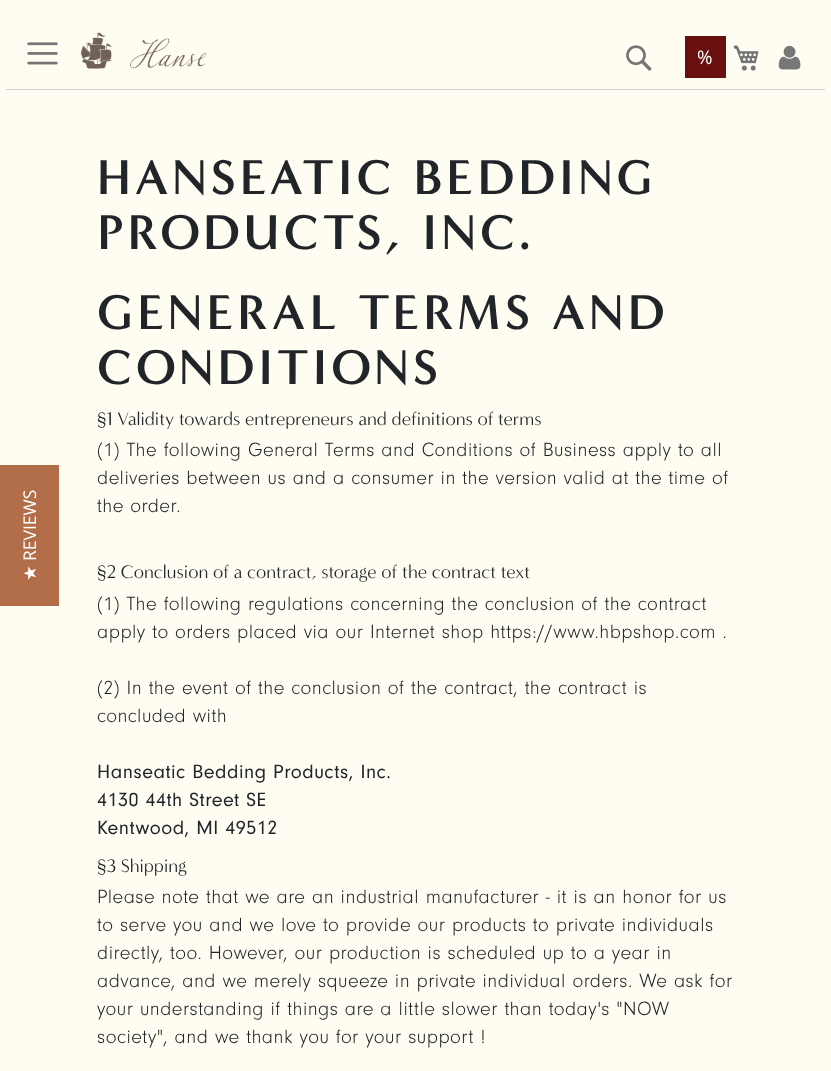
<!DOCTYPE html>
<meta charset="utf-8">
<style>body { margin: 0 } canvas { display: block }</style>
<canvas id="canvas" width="831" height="1071"></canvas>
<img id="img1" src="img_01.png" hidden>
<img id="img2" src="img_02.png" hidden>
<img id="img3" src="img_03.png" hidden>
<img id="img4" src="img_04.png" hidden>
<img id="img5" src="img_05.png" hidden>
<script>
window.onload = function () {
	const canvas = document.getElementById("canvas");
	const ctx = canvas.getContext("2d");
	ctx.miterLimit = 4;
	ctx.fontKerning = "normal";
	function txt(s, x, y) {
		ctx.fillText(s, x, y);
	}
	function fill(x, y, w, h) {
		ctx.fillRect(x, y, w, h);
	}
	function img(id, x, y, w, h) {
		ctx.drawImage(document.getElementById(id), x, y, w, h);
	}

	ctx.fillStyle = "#FFFCF2";
	fill(0, 0, 831, 1071);
	ctx.fillStyle = "#B16E48";
	fill(0, 465, 59, 141);
	ctx.fillStyle = "#CCCCCC";
	fill(6, 89, 819, 1);
	img("img1", 27, 42, 31, 23);
	img("img2", 81, 32, 126, 37);
	img("img3", 626, 45, 26, 26);
	ctx.fillStyle = "#680F0F";
	fill(685, 36, 41, 42);
	img("img4", 733, 45, 26, 26);
	img("img5", 778, 45, 23, 25);
	ctx.font = "17.5px Open Sans";
	ctx.fillStyle = "#FFFFFF";
	ctx.save();
	ctx.translate(36, 561);
	ctx.rotate(-90 * Math.PI / 180);
	ctx.fillText("REVIEWS", 0, 0);
	ctx.restore();
	ctx.font = "17.5px DejaVu Sans";
	ctx.save();
	ctx.translate(36, 581);
	ctx.rotate(-90 * Math.PI / 180);
	ctx.fillText("★", 0, 0);
	ctx.restore();
	ctx.letterSpacing = "0.5px";
	ctx.font = "18.75px Open Sans";
	txt("%", 697, 64);
	ctx.letterSpacing = "3.75px";
	ctx.font = "bold 50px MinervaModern";
	ctx.fillStyle = "#212529";
	txt("HANSEATIC BEDDING", 97, 194);
	txt("PRODUCTS, INC.", 97, 249);
	txt("GENERAL TERMS AND", 97, 329);
	txt("CONDITIONS", 97, 384);
	ctx.letterSpacing = "0px";
	ctx.font = "18.75px MinervaModern";
	txt("§1 Validity towards entrepreneurs and definitions of terms", 97, 425);
	ctx.letterSpacing = "0.5px";
	ctx.font = "300 20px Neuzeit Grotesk";
	txt("(1) The following General Terms and Conditions of Business apply to all", 97, 456);
	txt("deliveries between us and a consumer in the version valid at the time of", 97, 484);
	txt("the order.", 97, 512);
	ctx.letterSpacing = "0px";
	ctx.font = "18.75px MinervaModern";
	txt("§2 Conclusion of a contract, storage of the contract text", 97, 578);
	ctx.letterSpacing = "0.5px";
	ctx.font = "300 20px Neuzeit Grotesk";
	txt("(1) The following regulations concerning the conclusion of the contract", 97, 610);
	txt("apply to orders placed via our Internet shop https://www.hbpshop.com .", 97, 638);
	txt("(2) In the event of the conclusion of the contract, the contract is", 97, 694);
	txt("concluded with", 97, 722);
	ctx.font = "20px Neuzeit Grotesk";
	txt("Hanseatic Bedding Products, Inc.", 97, 778);
	txt("4130 44th Street SE", 97, 806);
	txt("Kentwood, MI 49512", 97, 834);
	ctx.letterSpacing = "0px";
	ctx.font = "18.75px MinervaModern";
	txt("§3 Shipping", 97, 872);
	ctx.letterSpacing = "0.5px";
	ctx.font = "300 20px Neuzeit Grotesk";
	txt("Please note that we are an industrial manufacturer - it is an honor for us", 97, 903);
	txt("to serve you and we love to provide our products to private individuals", 97, 931);
	txt("directly, too. However, our production is scheduled up to a year in", 97, 959);
	txt("advance, and we merely squeeze in private individual orders. We ask for", 97, 987);
	txt("your understanding if things are a little slower than today's \"NOW", 97, 1015);
	txt("society\", and we thank you for your support !", 97, 1043);
};
</script>
